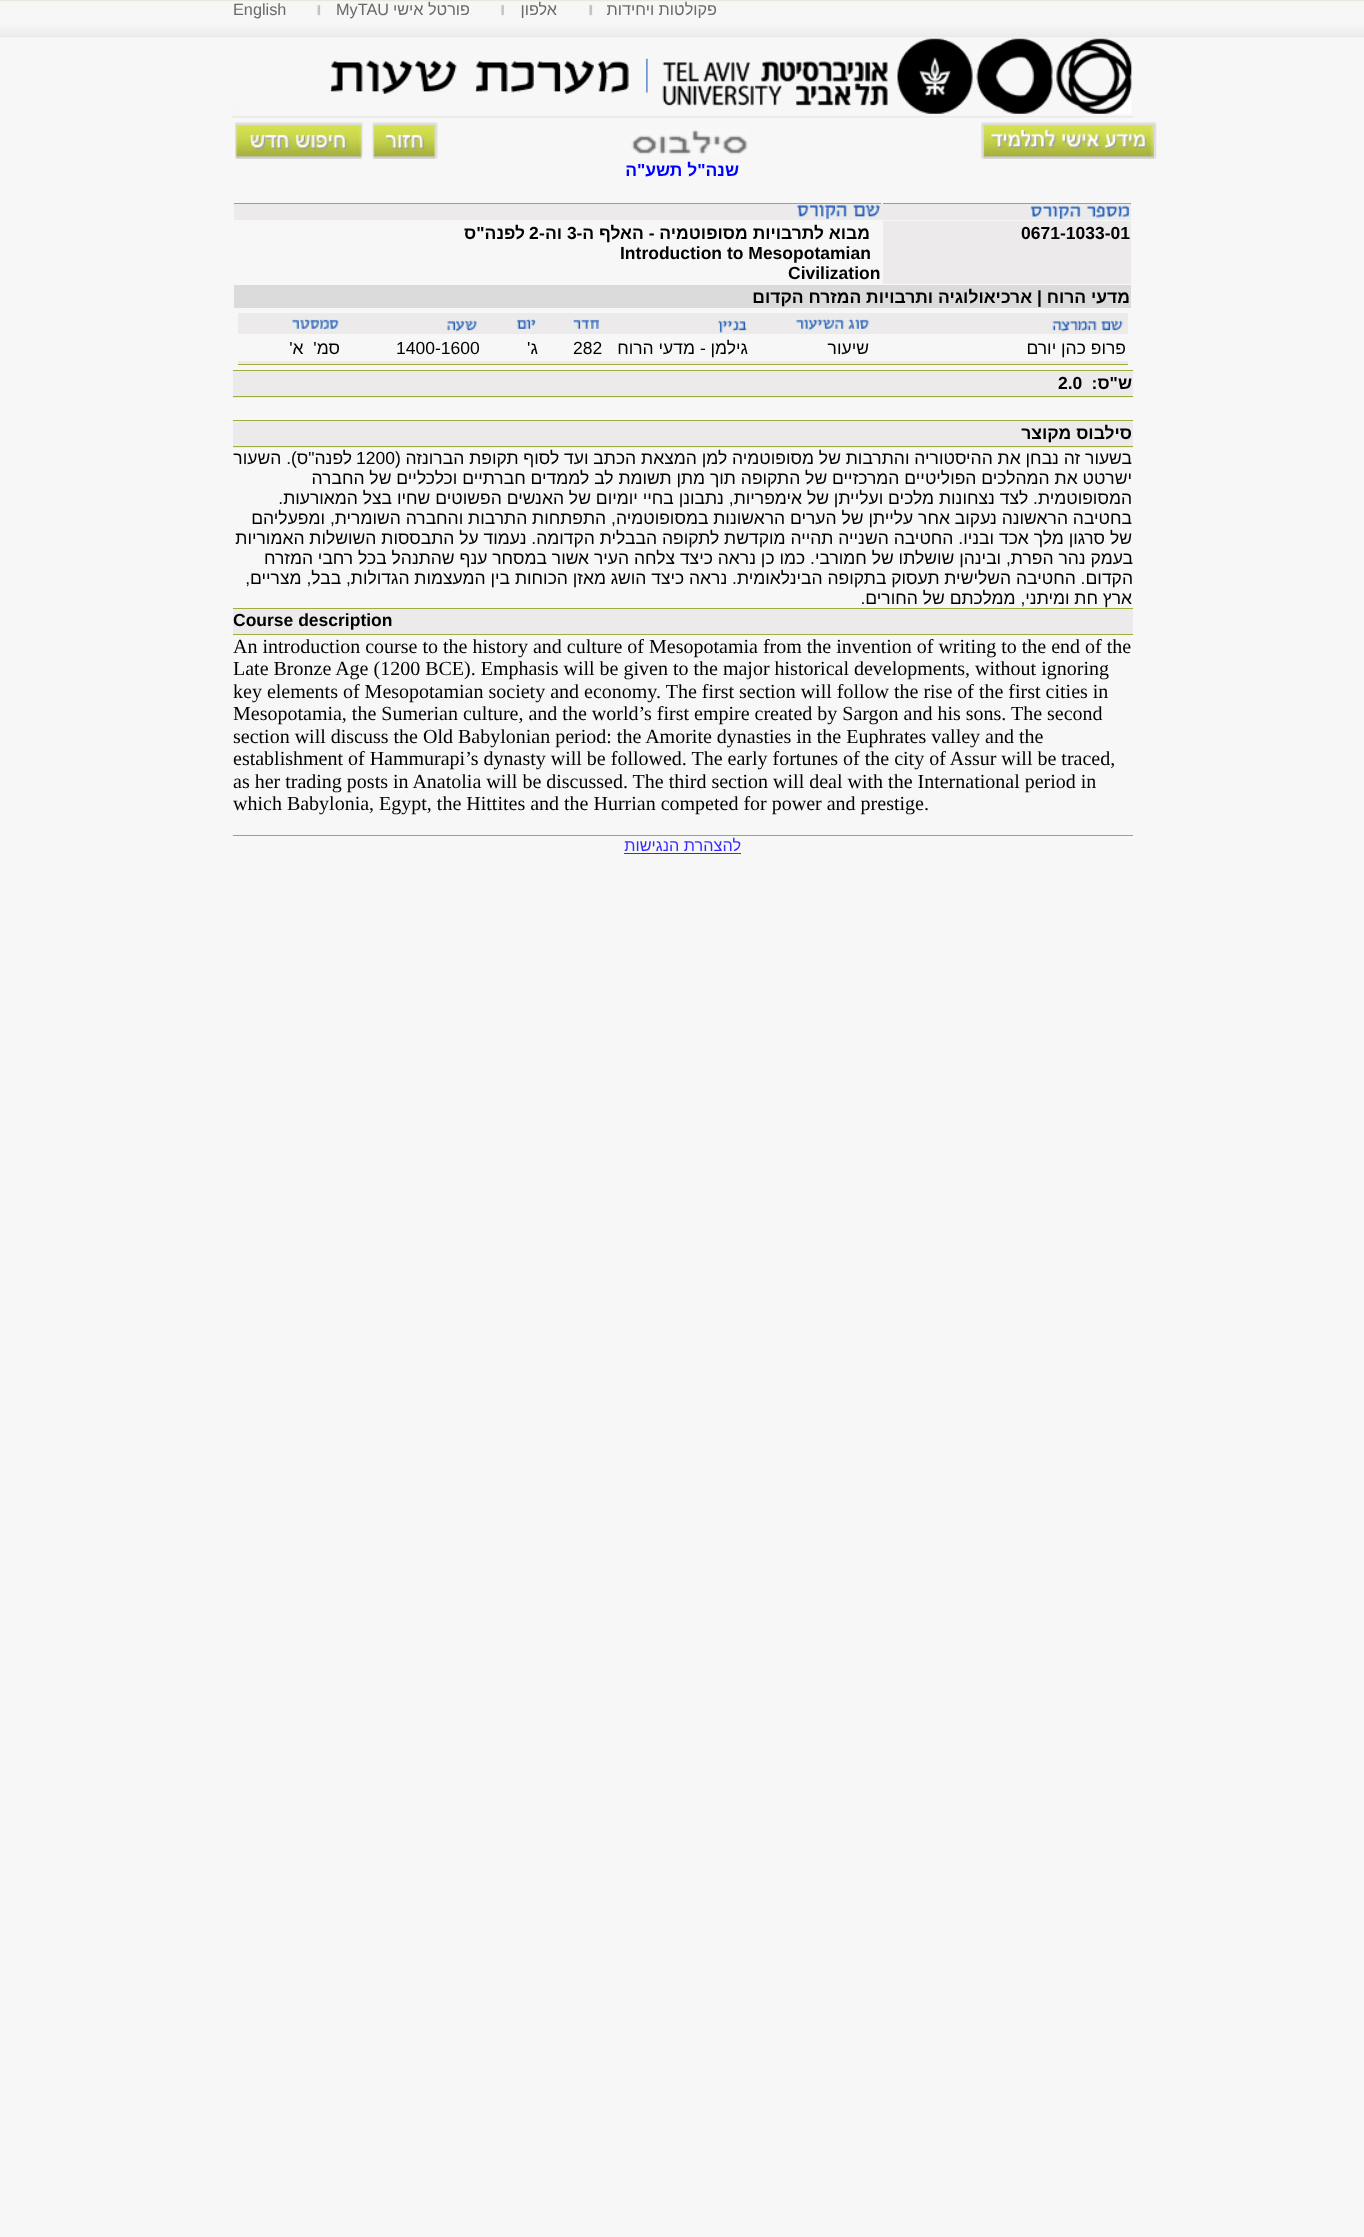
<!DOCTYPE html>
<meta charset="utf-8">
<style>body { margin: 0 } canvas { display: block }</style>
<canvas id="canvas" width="1364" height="2237"></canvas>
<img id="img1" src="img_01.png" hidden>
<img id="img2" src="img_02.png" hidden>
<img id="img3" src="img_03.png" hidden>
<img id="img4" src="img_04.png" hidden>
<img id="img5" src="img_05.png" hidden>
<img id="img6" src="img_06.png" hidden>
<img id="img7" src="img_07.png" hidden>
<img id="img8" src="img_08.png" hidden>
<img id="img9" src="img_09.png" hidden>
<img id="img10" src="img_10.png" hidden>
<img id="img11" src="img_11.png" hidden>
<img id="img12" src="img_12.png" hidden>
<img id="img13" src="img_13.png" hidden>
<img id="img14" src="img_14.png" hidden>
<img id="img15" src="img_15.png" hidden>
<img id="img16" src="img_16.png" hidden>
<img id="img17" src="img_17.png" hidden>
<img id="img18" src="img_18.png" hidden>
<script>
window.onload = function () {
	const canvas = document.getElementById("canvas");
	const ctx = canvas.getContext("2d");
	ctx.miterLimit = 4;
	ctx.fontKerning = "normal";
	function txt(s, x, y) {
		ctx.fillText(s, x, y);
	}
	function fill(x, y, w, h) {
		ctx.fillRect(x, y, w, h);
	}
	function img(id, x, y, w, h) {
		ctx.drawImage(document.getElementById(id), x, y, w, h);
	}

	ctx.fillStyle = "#F7F7F7";
	fill(0, 0, 1364, 2237);
	img("img1", 0, 0, 1364, 38);
	img("img2", 589, 5, 4, 11);
	img("img3", 501, 5, 3, 11);
	img("img4", 317, 5, 4, 11);
	img("img5", 232, 38, 902, 80);
	img("img6", 981, 122, 176, 37);
	img("img7", 372, 122, 66, 37);
	img("img8", 235, 122, 128, 37);
	img("img9", 631, 129, 117, 26);
	ctx.fillStyle = "#ECEAEB";
	fill(234, 203, 897, 17);
	ctx.fillStyle = "#A3AD3D";
	fill(883, 203, 248, 1);
	img("img10", 1030, 205, 99, 14);
	fill(234, 203, 647, 1);
	img("img11", 797, 205, 83, 14);
	ctx.fillStyle = "#ECEAEB";
	fill(883, 221, 248, 63);
	ctx.fillStyle = "#DBDBDB";
	fill(234, 285, 897, 23);
	ctx.fillStyle = "#ECEAEB";
	fill(238, 313, 890, 21);
	img("img12", 1052, 320, 71, 12);
	img("img13", 796, 318, 73, 13);
	img("img14", 717, 320, 30, 13);
	img("img15", 573, 319, 27, 10);
	img("img16", 516, 318, 20, 11);
	img("img17", 447, 320, 30, 12);
	img("img18", 292, 318, 47, 13);
	fill(238, 361, 890, 3);
	ctx.fillStyle = "#A3AD3D";
	fill(238, 364, 890, 1);
	ctx.fillStyle = "#ECEAEB";
	fill(233, 371, 900, 27);
	ctx.fillStyle = "#A3AD3D";
	fill(233, 370, 900, 1);
	fill(233, 396, 900, 1);
	ctx.fillStyle = "#ECEAEB";
	fill(233, 421, 900, 27);
	ctx.fillStyle = "#A3AD3D";
	fill(233, 420, 900, 1);
	fill(233, 446, 900, 1);
	ctx.fillStyle = "#ECEAEB";
	fill(233, 609, 900, 25);
	ctx.fillStyle = "#A3AD3D";
	fill(233, 608, 900, 1);
	fill(233, 634, 900, 1);
	fill(233, 835, 900, 1);
	ctx.fillStyle = "#342CFF";
	fill(624, 853, 117, 1);
	ctx.direction = "rtl";
	ctx.font = "16.25px Liberation Sans";
	ctx.fillStyle = "#696969";
	txt("פקולטות ויחידות", 717, 15);
	txt("אלפון", 557, 15);
	txt("פורטל אישי", 470, 15);
	ctx.direction = "ltr";
	txt("MyTAU", 336, 15);
	txt("English", 233, 15);
	ctx.direction = "rtl";
	ctx.font = "bold 17.5px Liberation Sans";
	ctx.fillStyle = "#0000FF";
	txt("שנה\"ל תשע\"ה", 739, 176);
	ctx.direction = "ltr";
	ctx.fillStyle = "#000000";
	txt("0671-1033-01", 1021, 239);
	ctx.direction = "rtl";
	txt("מבוא לתרבויות מסופוטמיה - האלף ה-", 870, 239);
	ctx.direction = "ltr";
	txt("3", 567, 239);
	ctx.direction = "rtl";
	txt("וה-", 562, 239);
	ctx.direction = "ltr";
	txt("2", 529, 239);
	ctx.direction = "rtl";
	txt("לפנה\"ס", 525, 239);
	ctx.direction = "ltr";
	txt("Introduction to Mesopotamian", 620, 259);
	txt("Civilization", 788, 279);
	ctx.direction = "rtl";
	txt("מדעי הרוח | ארכיאולוגיה ותרבויות המזרח הקדום", 1130, 303);
	ctx.font = "17.5px Liberation Sans";
	txt("פרופ כהן יורם", 1126, 354);
	txt("שיעור", 869, 354);
	txt("גילמן - מדעי הרוח", 748, 354);
	ctx.direction = "ltr";
	txt("282", 573, 354);
	ctx.direction = "rtl";
	txt("ג", 538, 354);
	ctx.direction = "ltr";
	txt("'", 527, 354);
	txt("1400-1600", 396, 354);
	ctx.direction = "rtl";
	txt("סמ'  א'", 340, 354);
	ctx.font = "bold 17.5px Liberation Sans";
	txt("ש\"ס:", 1132, 389);
	ctx.direction = "ltr";
	txt("2.0", 1058, 389);
	ctx.direction = "rtl";
	txt("סילבוס מקוצר", 1132, 439);
	ctx.font = "17.5px Liberation Sans";
	txt("בשעור זה נבחן את ההיסטוריה והתרבות של מסופוטמיה למן המצאת הכתב ועד לסוף תקופת הברונזה (", 1132, 464);
	ctx.direction = "ltr";
	txt("1200", 356, 464);
	ctx.direction = "rtl";
	txt("לפנה\"ס). השעור", 352, 464);
	txt("ישרטט את המהלכים הפוליטיים המרכזיים של התקופה תוך מתן תשומת לב לממדים חברתיים וכלכליים של החברה", 1132, 484);
	txt("המסופוטמית. לצד נצחונות מלכים ועלייתן של אימפריות, נתבונן בחיי יומיום של האנשים הפשוטים שחיו בצל המאורעות.", 1132, 504);
	txt("בחטיבה הראשונה נעקוב אחר עלייתן של הערים הראשונות במסופוטמיה, התפתחות התרבות והחברה השומרית, ומפעליהם", 1132, 524);
	txt("של סרגון מלך אכד ובניו. החטיבה השנייה תהייה מוקדשת לתקופה הבבלית הקדומה. נעמוד על התבססות השושלות האמוריות", 1132, 544);
	txt("בעמק נהר הפרת, ובינהן שושלתו של חמורבי. כמו כן נראה כיצד צלחה העיר אשור במסחר ענף שהתנהל בכל רחבי המזרח", 1133, 564);
	txt("הקדום. החטיבה השלישית תעסוק בתקופה הבינלאומית. נראה כיצד הושג מאזן הכוחות בין המעצמות הגדולות, בבל, מצריים,", 1133, 584);
	txt("ארץ חת ומיתני, ממלכתם של החורים.", 1132, 604);
	ctx.direction = "ltr";
	ctx.font = "bold 17.5px Liberation Sans";
	txt("Course description", 233, 626);
	ctx.font = "20px Liberation Serif";
	txt("An introduction course to the history and culture of Mesopotamia from the invention of writing to the end of the", 233, 653);
	txt("Late Bronze Age (1200 BCE). Emphasis will be given to the major historical developments, without ignoring", 233, 675);
	txt("key elements of Mesopotamian society and economy. The first section will follow the rise of the first cities in", 233, 698);
	txt("Mesopotamia, the Sumerian culture, and the world’s first empire created by Sargon and his sons. The second", 233, 720);
	txt("section will discuss the Old Babylonian period: the Amorite dynasties in the Euphrates valley and the", 233, 743);
	txt("establishment of Hammurapi’s dynasty will be followed. The early fortunes of the city of Assur will be traced,", 233, 765);
	txt("as her trading posts in Anatolia will be discussed. The third section will deal with the International period in", 233, 788);
	txt("which Babylonia, Egypt, the Hittites and the Hurrian competed for power and prestige.", 233, 810);
	ctx.direction = "rtl";
	ctx.font = "16.25px Liberation Sans";
	ctx.fillStyle = "#342CFF";
	txt("להצהרת הנגישות", 741, 851);
};
</script>
